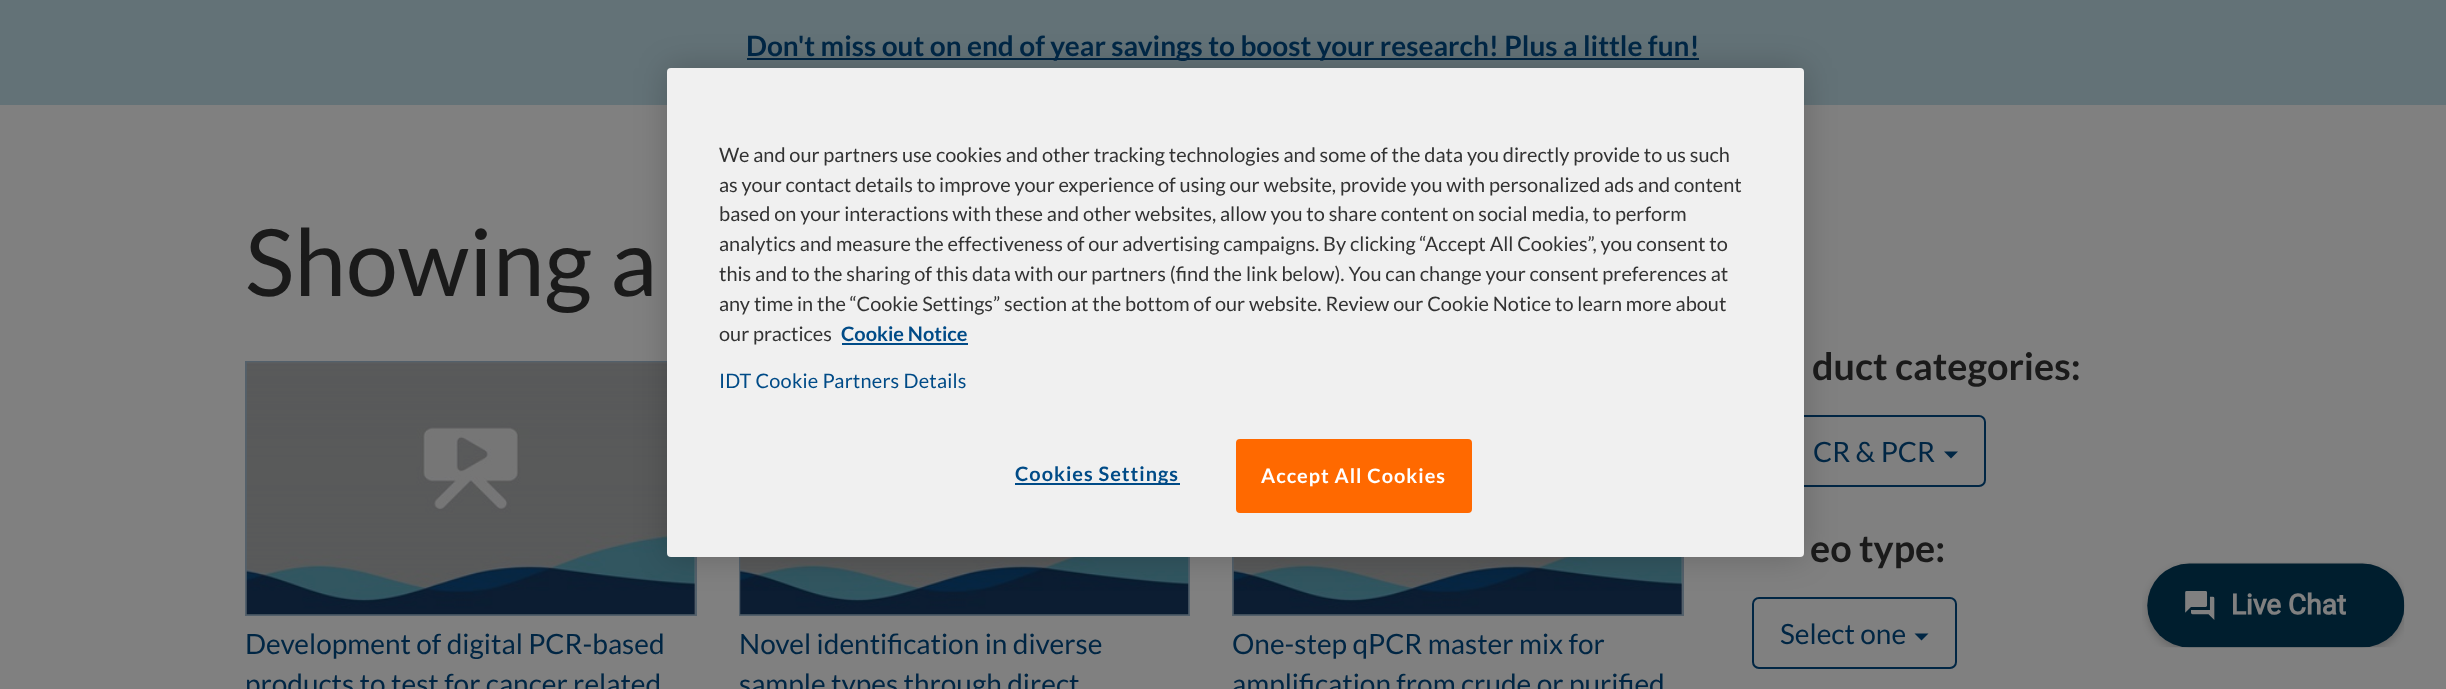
<!DOCTYPE html>
<meta charset="utf-8">
<style>body { margin: 0 } canvas { display: block }</style>
<canvas id="canvas" width="2446" height="689"></canvas>
<img id="img1" src="img_01.png" hidden>
<img id="img2" src="img_02.png" hidden>
<img id="img3" src="img_03.png" hidden>
<img id="img4" src="img_04.png" hidden>
<script>
window.onload = function () {
	const canvas = document.getElementById("canvas");
	const ctx = canvas.getContext("2d");
	ctx.miterLimit = 4;
	ctx.fontKerning = "normal";
	function txt(s, x, y) {
		ctx.fillText(s, x, y);
	}
	function fill(x, y, w, h) {
		ctx.fillRect(x, y, w, h);
	}
	function round(x, y, w, h, r) {
		ctx.beginPath();
		ctx.roundRect(x, y, w, h, r);
		ctx.fill();
	}
	function img(id, x, y, w, h) {
		ctx.drawImage(document.getElementById(id), x, y, w, h);
	}

	ctx.fillStyle = "#808080";
	fill(0, 0, 2446, 689);
	ctx.fillStyle = "#637277";
	fill(0, 0, 2446, 105);
	ctx.fillStyle = "#002644";
	fill(747, 58, 952, 2);
	ctx.beginPath();
	ctx.roundRect(1753, 416, 232, 70, 6);
	ctx.strokeStyle = "#002644";
	ctx.lineWidth = 2;
	ctx.stroke();
	ctx.beginPath();
	ctx.moveTo(1944, 451.5);
	ctx.lineTo(1958, 451.5);
	ctx.lineTo(1951, 458.5);
	ctx.closePath();
	ctx.fill();
	ctx.beginPath();
	ctx.roundRect(1753, 598, 203, 70, 6);
	ctx.stroke();
	ctx.beginPath();
	ctx.moveTo(1914.5, 633.5);
	ctx.lineTo(1928.5, 633.5);
	ctx.lineTo(1921.5, 640.5);
	ctx.closePath();
	ctx.fill();
	ctx.strokeStyle = "#53606B";
	ctx.strokeRect(246, 362, 450, 253);
	img("img1", 246, 362, 449, 253);
	ctx.strokeRect(740, 362, 449, 253);
	img("img2", 740, 557, 449, 58);
	ctx.strokeRect(1233, 362, 450, 253);
	img("img3", 1233, 557, 449, 58);
	ctx.fillStyle = "rgba(0, 0, 0, 0.2)";
	ctx.filter = "blur(16px)";
	ctx.beginPath();
	ctx.roundRect(667, 68, 1137, 489, 4);
	ctx.fill();
	ctx.filter = "none";
	ctx.fillStyle = "#F0F0F0";
	round(667, 68, 1137, 489, 4);
	ctx.fillStyle = "#004B87";
	fill(842, 343, 126, 2);
	fill(1015, 483, 165, 2);
	ctx.fillStyle = "#FF6900";
	ctx.beginPath();
	ctx.roundRect(1237, 440, 234, 72, 3);
	ctx.fill();
	ctx.strokeStyle = "#FF6900";
	ctx.stroke();
	img("img4", 2142, 562, 263, 86);
	ctx.font = "bold 28px Lato";
	ctx.fillStyle = "#002644";
	txt("Don't miss out on end of year savings to boost your research! Plus a little fun!", 746, 56);
	ctx.font = "93px Lato";
	ctx.fillStyle = "#1A1A1A";
	txt("Showing a", 245, 296);
	ctx.font = "bold 37.75px Lato";
	txt("duct categories:", 1812, 380);
	ctx.font = "28px Lato";
	ctx.fillStyle = "#002644";
	txt("CR & PCR", 1813, 462);
	ctx.font = "bold 37.75px Lato";
	ctx.fillStyle = "#1A1A1A";
	txt("eo type:", 1810, 562);
	ctx.font = "28px Lato";
	ctx.fillStyle = "#002644";
	txt("Select one", 1780, 644);
	txt("Development of digital PCR-based", 245, 654);
	txt("products to test for cancer related", 245, 694);
	txt("Novel identification in diverse", 739, 654);
	txt("sample types through direct", 739, 694);
	txt("One-step qPCR master mix for", 1232, 654);
	txt("amplification from crude or purified", 1232, 694);
	ctx.font = "19.92px Lato";
	ctx.fillStyle = "#333333";
	txt("We and our partners use cookies and other tracking technologies and some of the data you directly provide to us such", 719, 162);
	txt("as your contact details to improve your experience of using our website, provide you with personalized ads and content", 719, 192);
	txt("based on your interactions with these and other websites, allow you to share content on social media, to perform", 719, 221);
	txt("analytics and measure the effectiveness of our advertising campaigns. By clicking “Accept All Cookies”, you consent to", 719, 251);
	txt("this and to the sharing of this data with our partners (find the link below). You can change your consent preferences at", 719, 281);
	txt("any time in the “Cookie Settings” section at the bottom of our website. Review our Cookie Notice to learn more about", 719, 311);
	txt("our practices", 719, 341);
	ctx.font = "bold 19.92px Lato";
	ctx.fillStyle = "#004B87";
	txt("Cookie Notice", 841, 341);
	ctx.letterSpacing = "0.2px";
	ctx.font = "19.92px Lato";
	txt("IDT Cookie Partners Details", 719, 388);
	ctx.letterSpacing = "1px";
	ctx.font = "bold 19.92px Lato";
	txt("Cookies Settings", 1015, 481);
	ctx.fillStyle = "#FFFFFF";
	txt("Accept All Cookies", 1261, 483);
};
</script>
